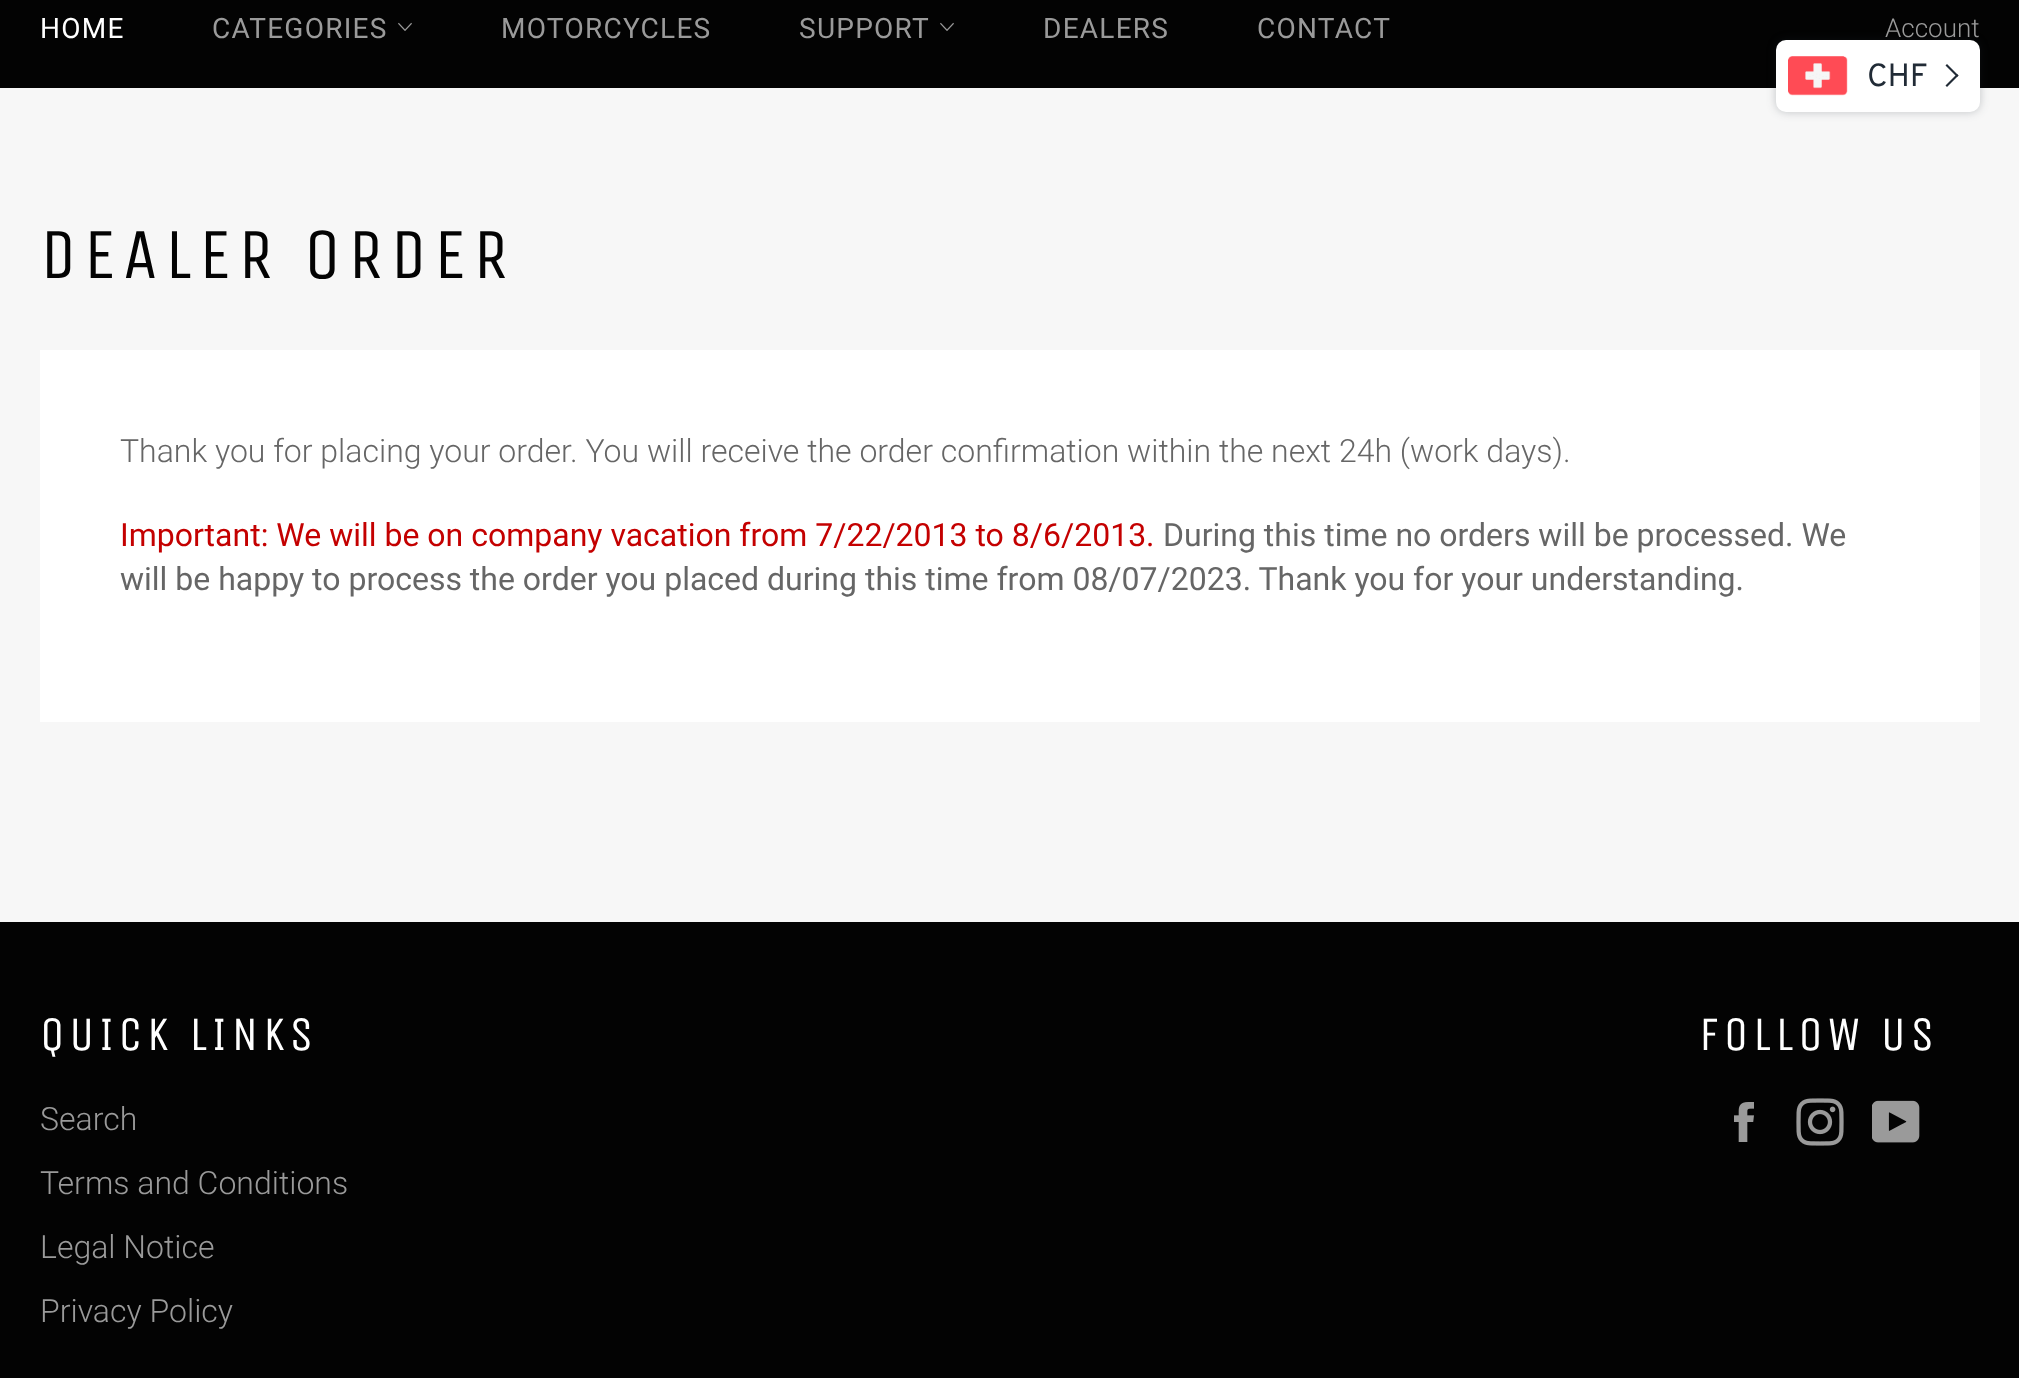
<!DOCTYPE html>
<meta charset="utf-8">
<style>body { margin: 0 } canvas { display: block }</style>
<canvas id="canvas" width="2019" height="1378"></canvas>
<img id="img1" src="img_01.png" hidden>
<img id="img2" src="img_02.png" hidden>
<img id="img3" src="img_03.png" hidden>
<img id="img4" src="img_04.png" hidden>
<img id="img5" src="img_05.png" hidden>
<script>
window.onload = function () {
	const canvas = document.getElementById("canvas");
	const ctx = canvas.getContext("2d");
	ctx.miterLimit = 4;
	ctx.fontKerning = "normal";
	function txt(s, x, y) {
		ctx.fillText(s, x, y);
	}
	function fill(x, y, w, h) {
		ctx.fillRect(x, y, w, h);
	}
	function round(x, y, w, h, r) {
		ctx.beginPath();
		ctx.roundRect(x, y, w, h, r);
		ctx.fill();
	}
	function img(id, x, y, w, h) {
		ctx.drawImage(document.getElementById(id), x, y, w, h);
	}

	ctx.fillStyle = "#F7F7F7";
	fill(0, 0, 2019, 1378);
	ctx.fillStyle = "#030303";
	fill(0, 0, 2019, 88);
	img("img1", 398, 22, 14, 9);
	img("img1", 940, 22, 14, 9);
	ctx.fillStyle = "rgba(33, 43, 54, 0.25)";
	ctx.filter = "blur(5px)";
	ctx.beginPath();
	ctx.roundRect(1776, 40, 204, 72, 10);
	ctx.fill();
	ctx.filter = "none";
	ctx.fillStyle = "#FFFFFF";
	round(1776, 40, 204, 72, 10);
	img("img2", 1788, 56, 60, 40);
	ctx.fillStyle = "#212B36";
	ctx.beginPath();
	ctx.moveTo(1945.5, 65.5);
	ctx.lineTo(1947, 64);
	ctx.lineTo(1958.5, 75.5);
	ctx.lineTo(1957, 77);
	ctx.closePath();
	ctx.fill();
	ctx.beginPath();
	ctx.moveTo(1945.5, 85.5);
	ctx.lineTo(1957, 74);
	ctx.lineTo(1958.5, 75.5);
	ctx.lineTo(1947, 87);
	ctx.closePath();
	ctx.fill();
	ctx.fillStyle = "#FFFFFF";
	fill(40, 350, 1940, 372);
	ctx.fillStyle = "#030303";
	fill(0, 922, 2019, 456);
	img("img3", 1734, 1102, 20, 40);
	img("img4", 1796, 1098, 48, 48);
	img("img5", 1872, 1100, 48, 43);
	ctx.letterSpacing = "1.25px";
	ctx.font = "28px Roboto";
	ctx.fillStyle = "#FFFFFF";
	txt("HOME", 40, 38);
	ctx.fillStyle = "#9A9A9A";
	txt("CATEGORIES", 212, 38);
	txt("MOTORCYCLES", 501, 38);
	txt("SUPPORT", 799, 38);
	txt("DEALERS", 1043, 38);
	txt("CONTACT", 1257, 38);
	ctx.letterSpacing = "0px";
	ctx.font = "300 26px Roboto";
	txt("Account", 1885, 37);
	ctx.font = "32px Overpass";
	ctx.fillStyle = "#212B36";
	txt("CHF", 1867, 86);
	ctx.letterSpacing = "7.25px";
	ctx.font = "72px Unica One";
	ctx.fillStyle = "#030303";
	txt("DEALER ORDER", 40, 278);
	ctx.letterSpacing = "0px";
	ctx.font = "300 32px Roboto";
	ctx.fillStyle = "#666666";
	txt("Thank you for placing your order. You will receive the order confirmation within the next 24h (work days).", 120, 462);
	ctx.font = "32px Roboto";
	ctx.fillStyle = "#C40000";
	txt("Important: We will be on company vacation from 7/22/2013 to 8/6/2013.", 120, 546);
	ctx.fillStyle = "#666666";
	txt("During this time no orders will be processed. We", 1163, 546);
	txt("will be happy to process the order you placed during this time from 08/07/2023. Thank you for your understanding.", 120, 590);
	ctx.letterSpacing = "4.75px";
	ctx.font = "48px Unica One";
	ctx.fillStyle = "#FFFFFF";
	txt("QUICK LINKS", 40, 1050);
	ctx.letterSpacing = "0px";
	ctx.font = "300 32px Roboto";
	ctx.fillStyle = "#9A9A9A";
	txt("Search", 40, 1130);
	txt("Terms and Conditions", 40, 1194);
	txt("Legal Notice", 40, 1258);
	txt("Privacy Policy", 40, 1322);
	ctx.letterSpacing = "4.75px";
	ctx.font = "48px Unica One";
	ctx.fillStyle = "#FFFFFF";
	txt("FOLLOW US", 1699, 1050);
};
</script>
